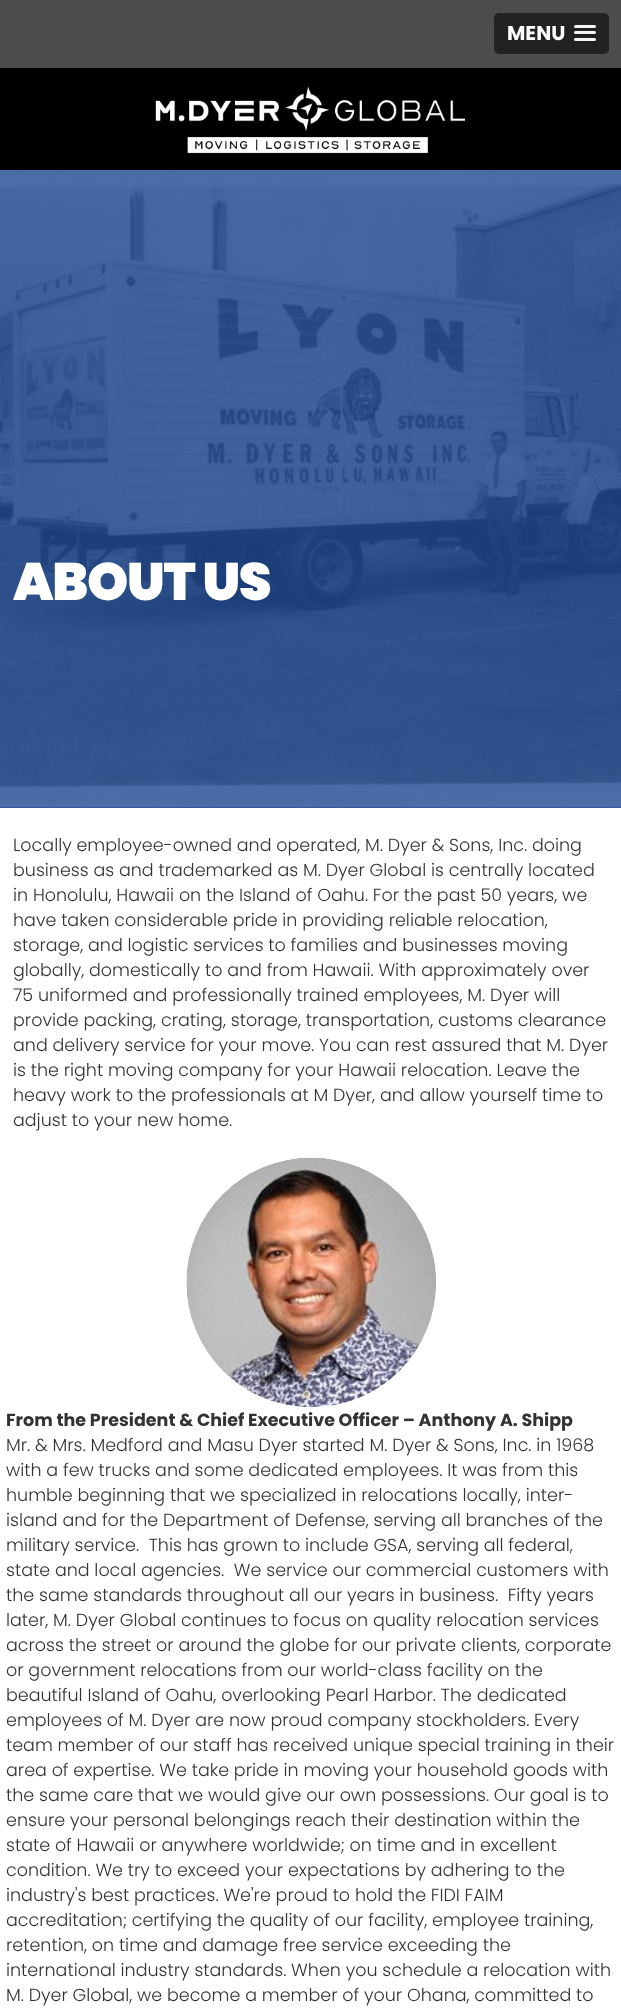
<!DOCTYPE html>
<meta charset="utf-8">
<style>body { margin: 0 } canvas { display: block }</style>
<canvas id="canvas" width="621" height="2010"></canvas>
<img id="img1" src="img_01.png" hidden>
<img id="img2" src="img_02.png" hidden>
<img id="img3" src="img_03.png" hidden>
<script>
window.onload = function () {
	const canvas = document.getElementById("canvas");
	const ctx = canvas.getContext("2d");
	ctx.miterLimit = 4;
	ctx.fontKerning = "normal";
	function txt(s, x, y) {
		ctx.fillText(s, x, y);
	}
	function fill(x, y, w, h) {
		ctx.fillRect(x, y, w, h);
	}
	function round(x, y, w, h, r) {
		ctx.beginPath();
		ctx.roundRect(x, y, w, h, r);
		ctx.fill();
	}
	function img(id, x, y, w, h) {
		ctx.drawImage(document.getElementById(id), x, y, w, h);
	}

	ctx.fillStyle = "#FFFFFF";
	fill(0, 0, 621, 2010);
	ctx.fillStyle = "#000000";
	fill(0, 68, 621, 102);
	ctx.fillStyle = "#4C4C4C";
	fill(0, 0, 621, 68);
	ctx.fillStyle = "#222222";
	round(494, 13, 115, 41, 5);
	ctx.fillStyle = "#1A1A1A";
	ctx.beginPath();
	ctx.moveTo(574, 27);
	ctx.bezierCurveTo(573.5, 29.5, 578, 29, 578.5, 29);
	ctx.lineTo(591.5, 29);
	ctx.bezierCurveTo(592, 29, 596.5, 29.5, 596, 27);
	ctx.bezierCurveTo(595, 28, 575, 28, 574, 27);
	ctx.closePath();
	ctx.fill();
	ctx.fillStyle = "#F5F5F5";
	round(574, 25, 22, 3, 1.5);
	ctx.fillStyle = "#1A1A1A";
	ctx.beginPath();
	ctx.moveTo(574.5, 33.5);
	ctx.lineTo(574, 35);
	ctx.bezierCurveTo(574.5, 36.5, 577.5, 36, 578.5, 36);
	ctx.lineTo(591.5, 36);
	ctx.bezierCurveTo(592.5, 36, 595.5, 36.5, 596, 35);
	ctx.lineTo(595.5, 33.5);
	ctx.closePath();
	ctx.fill();
	ctx.fillStyle = "#F5F5F5";
	round(574, 31, 22, 3, 1.5);
	ctx.fillStyle = "#1A1A1A";
	ctx.beginPath();
	ctx.moveTo(574, 39.5);
	ctx.bezierCurveTo(572.5, 42.5, 578, 42, 578.5, 42);
	ctx.lineTo(591.5, 42);
	ctx.bezierCurveTo(592, 42, 597.5, 42.5, 596, 39.5);
	ctx.bezierCurveTo(595, 40, 575, 40, 574, 39.5);
	ctx.closePath();
	ctx.fill();
	ctx.fillStyle = "#F5F5F5";
	round(574, 38, 22, 3, 1.5);
	img("img1", 155, 86, 310, 68);
	ctx.fillStyle = "#214891";
	fill(0, 807, 621, 1);
	img("img2", 0, 170, 621, 638);
	img("img3", 186, 1157, 250, 251);
	ctx.font = "bold 20px Poppins";
	ctx.fillStyle = "#FFFFFF";
	txt("MENU", 507, 40);
	ctx.letterSpacing = "-1.25px";
	ctx.font = "900 52.5px Poppins";
	txt("ABOUT US", 13, 600);
	ctx.letterSpacing = "0px";
	ctx.font = "300 17.5px Poppins";
	ctx.fillStyle = "#333333";
	txt("Locally employee-owned and operated, M. Dyer & Sons, Inc. doing", 13, 851);
	txt("business as and trademarked as M. Dyer Global is centrally located", 13, 876);
	txt("in Honolulu, Hawaii on the Island of Oahu. For the past 50 years, we", 13, 901);
	txt("have taken considerable pride in providing reliable relocation,", 13, 926);
	txt("storage, and logistic services to families and businesses moving", 13, 951);
	txt("globally, domestically to and from Hawaii. With approximately over", 13, 976);
	txt("75 uniformed and professionally trained employees, M. Dyer will", 13, 1001);
	txt("provide packing, crating, storage, transportation, customs clearance", 13, 1026);
	txt("and delivery service for your move. You can rest assured that M. Dyer", 13, 1051);
	txt("is the right moving company for your Hawaii relocation. Leave the", 13, 1076);
	txt("heavy work to the professionals at M Dyer, and allow yourself time to", 13, 1101);
	txt("adjust to your new home.", 13, 1126);
	ctx.font = "bold 17.5px Poppins";
	txt("From the President & Chief Executive Officer – Anthony A. Shipp", 6, 1426);
	ctx.font = "300 17.5px Poppins";
	txt("Mr. & Mrs. Medford and Masu Dyer started M. Dyer & Sons, Inc. in 1968", 6, 1451);
	txt("with a few trucks and some dedicated employees. It was from this", 6, 1476);
	txt("humble beginning that we specialized in relocations locally, inter-", 6, 1501);
	txt("island and for the Department of Defense, serving all branches of the", 6, 1526);
	txt("military service.  This has grown to include GSA, serving all federal,", 6, 1551);
	txt("state and local agencies.  We service our commercial customers with", 6, 1576);
	txt("the same standards throughout all our years in business.  Fifty years", 6, 1601);
	txt("later, M. Dyer Global continues to focus on quality relocation services", 6, 1626);
	txt("across the street or around the globe for our private clients, corporate", 6, 1651);
	txt("or government relocations from our world-class facility on the", 6, 1676);
	txt("beautiful Island of Oahu, overlooking Pearl Harbor. The dedicated", 6, 1701);
	txt("employees of M. Dyer are now proud company stockholders. Every", 6, 1726);
	txt("team member of our staff has received unique special training in their", 6, 1751);
	txt("area of expertise. We take pride in moving your household goods with", 6, 1776);
	txt("the same care that we would give our own possessions. Our goal is to", 6, 1801);
	txt("ensure your personal belongings reach their destination within the", 6, 1826);
	txt("state of Hawaii or anywhere worldwide; on time and in excellent", 6, 1851);
	txt("condition. We try to exceed your expectations by adhering to the", 6, 1876);
	txt("industry's best practices. We're proud to hold the FIDI FAIM", 6, 1901);
	txt("accreditation; certifying the quality of our facility, employee training,", 6, 1926);
	txt("retention, on time and damage free service exceeding the", 6, 1951);
	txt("international industry standards. When you schedule a relocation with", 6, 1976);
	txt("M. Dyer Global, we become a member of your Ohana, committed to", 6, 2001);
};
</script>
